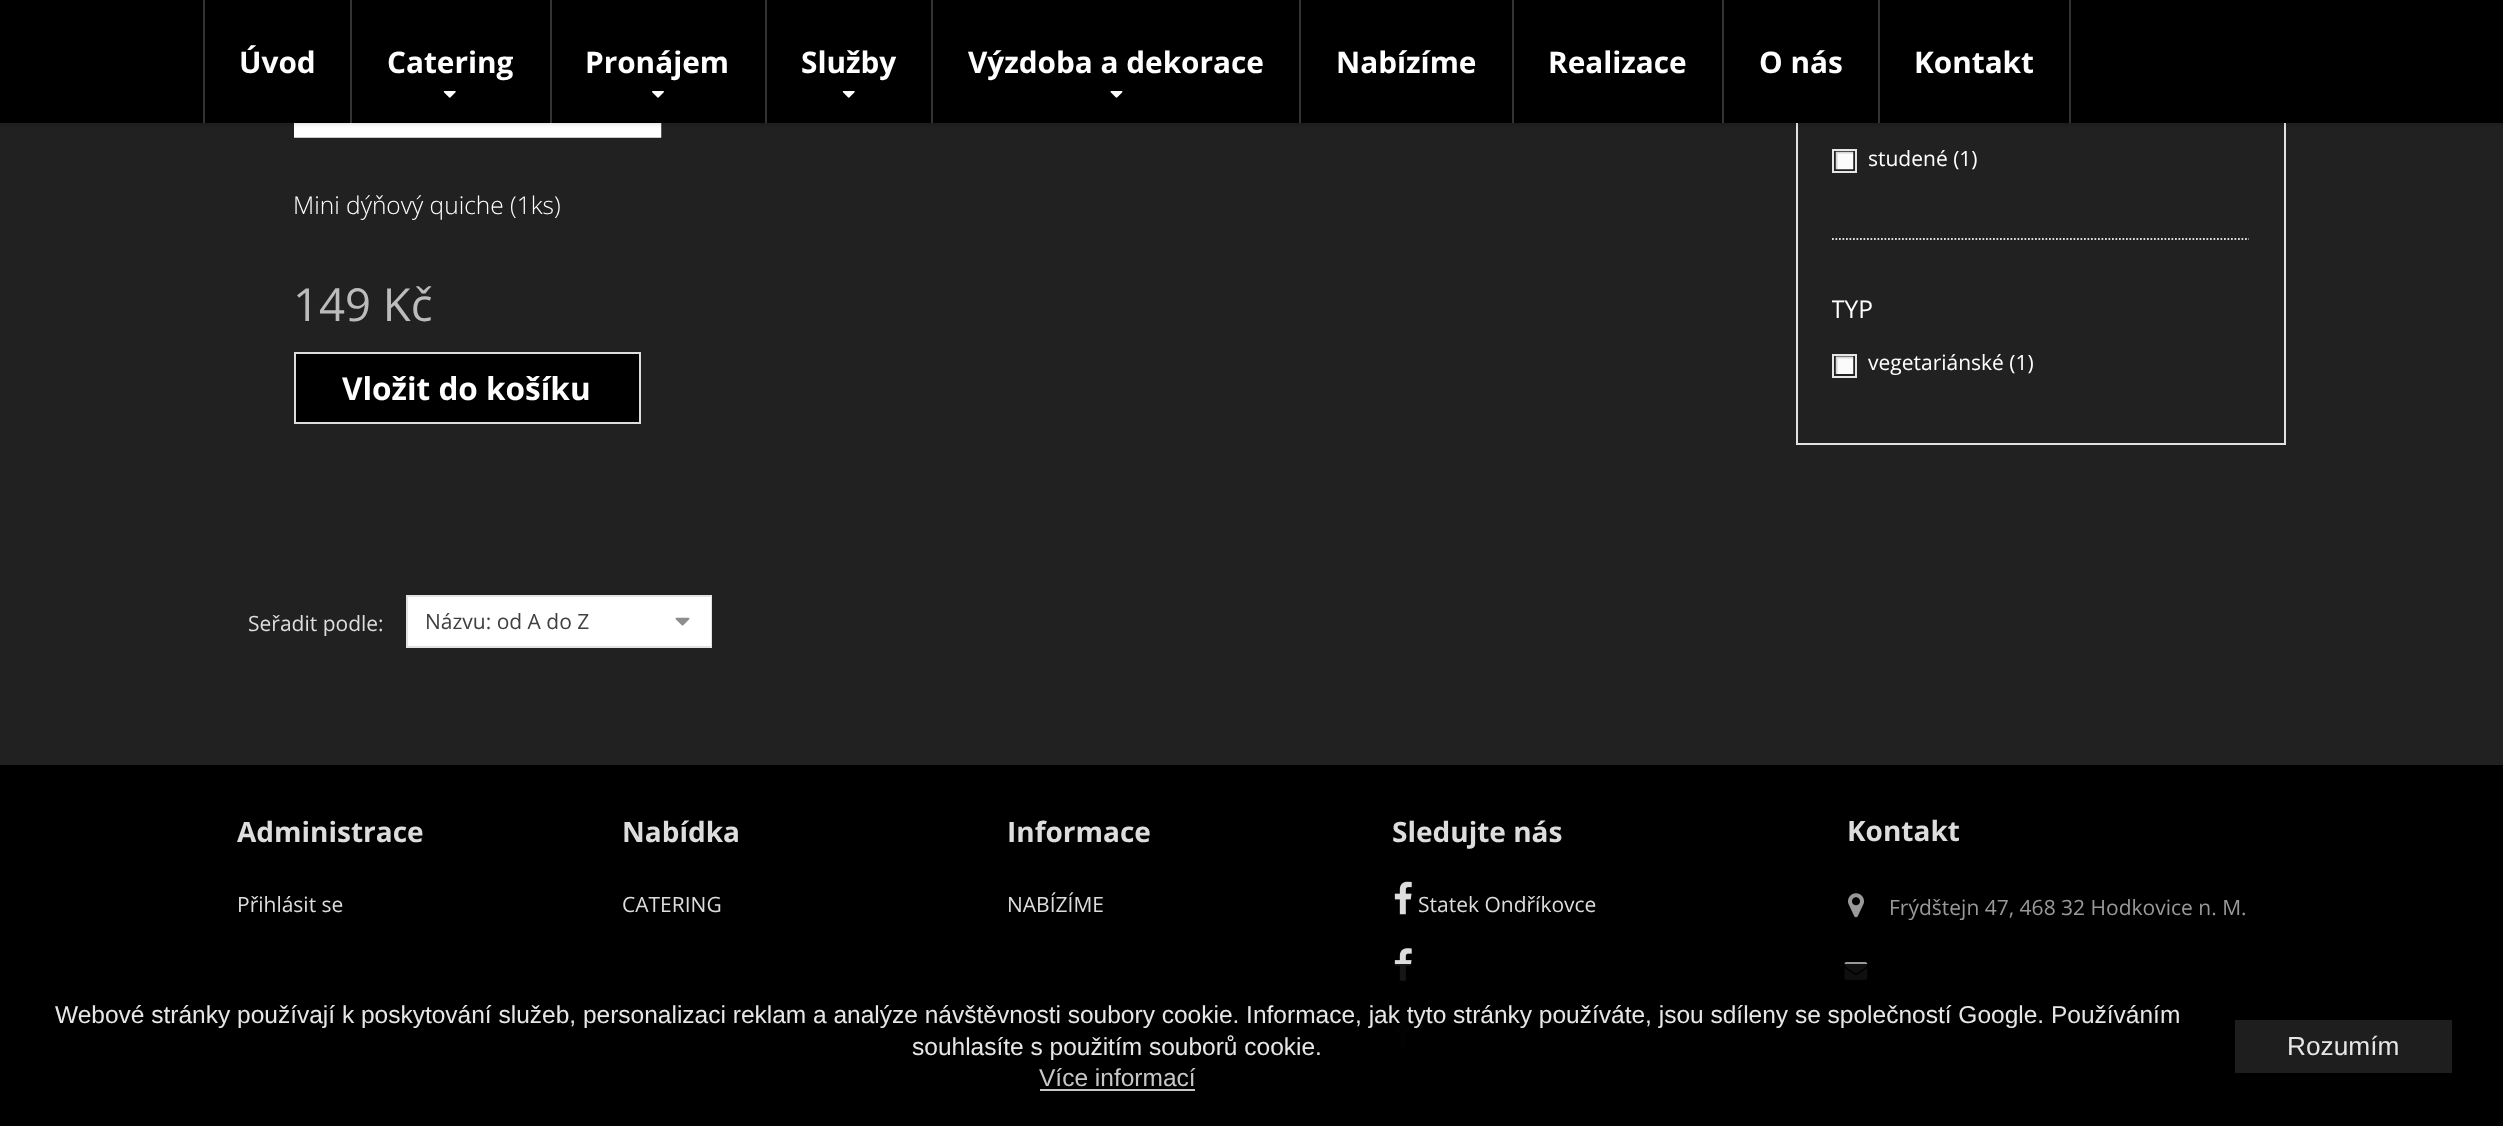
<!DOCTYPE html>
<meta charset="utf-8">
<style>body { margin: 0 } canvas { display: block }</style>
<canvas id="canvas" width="2503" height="1126"></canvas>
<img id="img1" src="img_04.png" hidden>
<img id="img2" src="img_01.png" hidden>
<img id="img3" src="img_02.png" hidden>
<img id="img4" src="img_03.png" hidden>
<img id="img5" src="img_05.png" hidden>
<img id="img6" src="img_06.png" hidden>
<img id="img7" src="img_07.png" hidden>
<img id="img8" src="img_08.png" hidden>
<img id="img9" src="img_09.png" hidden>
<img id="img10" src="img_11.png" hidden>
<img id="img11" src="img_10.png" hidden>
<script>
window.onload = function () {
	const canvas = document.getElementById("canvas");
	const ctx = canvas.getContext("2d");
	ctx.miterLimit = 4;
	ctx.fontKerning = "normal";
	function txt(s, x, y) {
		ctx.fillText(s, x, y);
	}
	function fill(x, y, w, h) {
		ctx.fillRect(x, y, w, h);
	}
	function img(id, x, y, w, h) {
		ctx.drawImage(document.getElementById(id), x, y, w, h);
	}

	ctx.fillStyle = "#212121";
	fill(0, 0, 2503, 1126);
	img("img1", 294, 123, 368, 15);
	ctx.strokeStyle = "#E3E1E1";
	ctx.lineWidth = 2;
	ctx.strokeRect(1797, -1, 488, 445);
	ctx.fillStyle = "rgba(0, 0, 0, 0.15)";
	ctx.filter = "blur(2px)";
	ctx.beginPath();
	ctx.rect(0, 2, 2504, 122);
	ctx.fill();
	ctx.filter = "none";
	ctx.fillStyle = "#000000";
	fill(0, 0, 2503, 123);
	ctx.fillStyle = "#333333";
	fill(203, 0, 2, 123);
	fill(350, 0, 2, 123);
	img("img2", 443, 91, 13, 7);
	fill(550, 0, 2, 123);
	img("img3", 652, 91, 12, 7);
	fill(765, 0, 2, 123);
	img("img2", 842, 91, 13, 7);
	fill(931, 0, 2, 123);
	img("img4", 1110, 91, 13, 7);
	fill(1299, 0, 2, 123);
	fill(1512, 0, 2, 123);
	fill(1722, 0, 2, 123);
	fill(2069, 0, 2, 123);
	fill(1878, 0, 2, 123);
	ctx.fillStyle = "#000000";
	ctx.beginPath();
	ctx.rect(295, 353, 345, 70);
	ctx.fill();
	ctx.strokeStyle = "#DDDDDD";
	ctx.stroke();
	ctx.strokeStyle = "#E2E2E2";
	ctx.strokeRect(407, 596, 304, 51);
	ctx.fillStyle = "#FFFFFF";
	fill(408, 597, 303, 49);
	img("img5", 675, 617, 15, 9);
	ctx.beginPath();
	ctx.moveTo(1832, 239);
	ctx.lineTo(2249, 239);
	ctx.strokeStyle = "#DDDDDD";
	ctx.lineWidth = 1.8;
	ctx.setLineDash([1.75, 1.75]);
	ctx.stroke();
	ctx.strokeStyle = "#E6E6E6";
	ctx.lineWidth = 2;
	ctx.setLineDash([]);
	ctx.strokeRect(1833, 150, 23, 22);
	img("img6", 1835, 151, 19, 19);
	ctx.strokeRect(1833, 355, 23, 22);
	img("img7", 1835, 356, 19, 18);
	ctx.fillStyle = "#000000";
	fill(0, 765, 2503, 361);
	img("img8", 1848, 893, 16, 25);
	img("img9", 1844, 962, 24, 18);
	img("img10", 1394, 948, 18, 33);
	img("img11", 1394, 1014, 18, 34);
	ctx.fillStyle = "rgba(0, 0, 0, 0.9)";
	fill(1394, 964, 474, 84);
	fill(1394, 1014, 18, 34);
	ctx.fillStyle = "#C7C7C7";
	fill(1040, 1089, 155, 2);
	ctx.fillStyle = "#1E1E1E";
	fill(2235, 1020, 217, 53);
	img("img11", 1394, 881, 18, 34);
	ctx.font = "bold 29.75px Open Sans";
	ctx.fillStyle = "#FFFFFF";
	txt("Úvod", 239, 73);
	txt("Catering", 387, 73);
	txt("Pronájem", 585, 73);
	txt("Služby", 801, 73);
	txt("Výzdoba a dekorace", 968, 73);
	txt("Nabízíme", 1336, 73);
	txt("Realizace", 1548, 73);
	txt("O nás", 1759, 73);
	txt("Kontakt", 1914, 73);
	ctx.font = "300 24.5px Open Sans";
	txt("Mini dýňový quiche (1ks)", 293, 214);
	ctx.font = "45.5px Open Sans";
	ctx.fillStyle = "#BCBCBC";
	txt("149 Kč", 293, 321);
	ctx.font = "bold 31.5px Open Sans";
	ctx.fillStyle = "#FFFFFF";
	txt("Vložit do košíku", 342, 400);
	ctx.font = "21px Open Sans";
	ctx.fillStyle = "#DDDDDD";
	txt("Seřadit podle:", 248, 631);
	ctx.fillStyle = "#404040";
	txt("Názvu: od A do Z", 425, 629);
	ctx.fillStyle = "#FFFFFF";
	txt("studené (1)", 1868, 166);
	ctx.save();
	ctx.beginPath();
	ctx.rect(1832, 292, 417, 151);
	ctx.clip();
	ctx.font = "24.5px Open Sans";
	txt("TYP", 1831, 318);
	ctx.restore();
	txt("vegetariánské (1)", 1868, 370);
	ctx.font = "bold 28px Open Sans";
	ctx.fillStyle = "#DDDDDD";
	txt("Kontakt", 1847, 841);
	ctx.font = "21px Open Sans";
	ctx.fillStyle = "#999999";
	txt("Frýdštejn 47, 468 32 Hodkovice n. M.", 1889, 915);
	ctx.font = "24.5px Liberation Sans";
	ctx.fillStyle = "#E6E6E6";
	txt("Webové stránky používají k poskytování služeb, personalizaci reklam a analýze návštěvnosti soubory cookie. Informace, jak tyto stránky používáte, jsou sdíleny se společností Google. Používáním", 55, 1023);
	txt("souhlasíte s použitím souborů cookie.", 912, 1055);
	ctx.fillStyle = "#C7C7C7";
	txt("Více informací", 1039, 1086);
	ctx.font = "26.25px Liberation Sans";
	ctx.fillStyle = "#E6E6E6";
	txt("Rozumím", 2287, 1055);
	ctx.font = "bold 28px Open Sans";
	ctx.fillStyle = "#DDDDDD";
	txt("Administrace", 237, 842);
	ctx.font = "21px Open Sans";
	txt("Přihlásit se", 237, 912);
	ctx.font = "bold 28px Open Sans";
	txt("Nabídka", 622, 842);
	ctx.font = "21px Open Sans";
	txt("CATERING", 622, 912);
	ctx.font = "bold 28px Open Sans";
	txt("Informace", 1007, 842);
	ctx.font = "21px Open Sans";
	txt("NABÍZÍME", 1007, 912);
	ctx.font = "bold 28px Open Sans";
	txt("Sledujte nás", 1392, 842);
	ctx.font = "21px Open Sans";
	txt("Statek Ondříkovce", 1418, 912);
};
</script>
